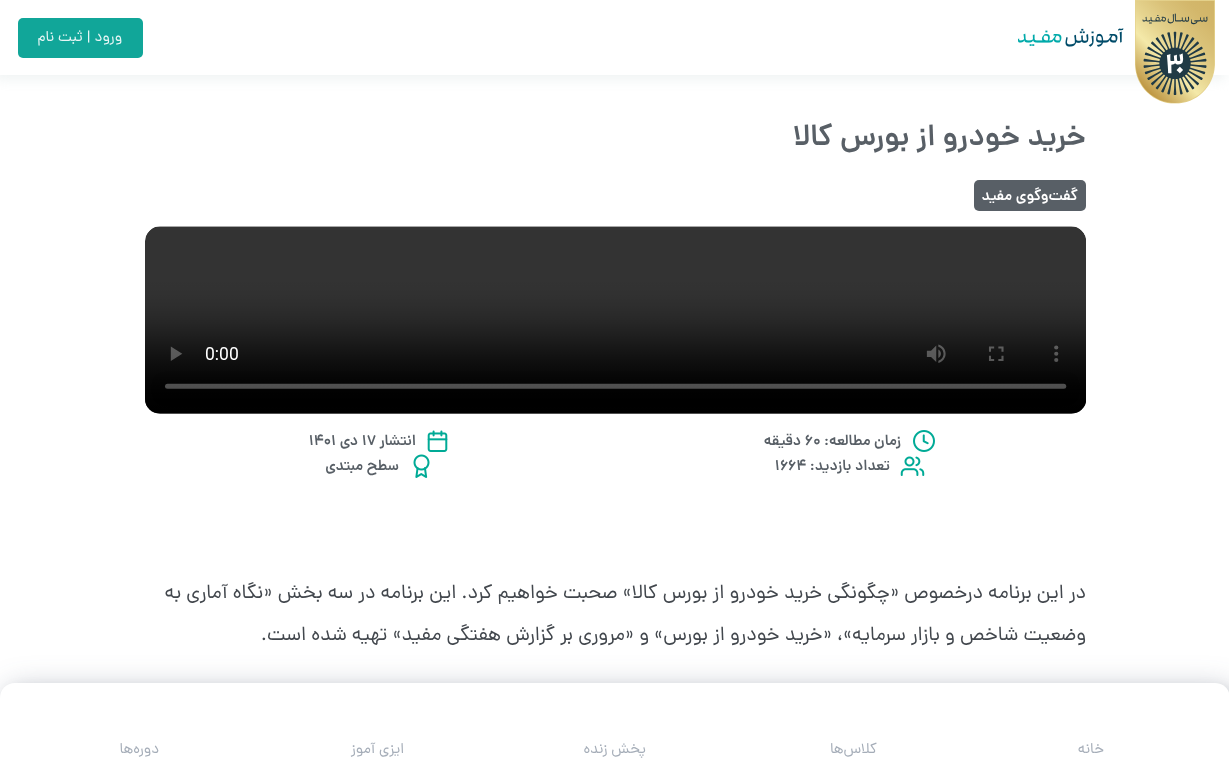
<!DOCTYPE html>
<meta charset="utf-8">
<style>body { margin: 0 } canvas { display: block }</style>
<canvas id="canvas" width="1229" height="779"></canvas>
<img id="img1" src="img_01.png" hidden>
<img id="img2" src="img_02.png" hidden>
<img id="img3" src="img_03.png" hidden>
<img id="img4" src="img_04.png" hidden>
<img id="img5" src="img_05.png" hidden>
<img id="img6" src="img_06.png" hidden>
<img id="img7" src="img_07.png" hidden>
<script>
window.onload = function () {
	const canvas = document.getElementById("canvas");
	const ctx = canvas.getContext("2d");
	ctx.miterLimit = 4;
	ctx.fontKerning = "normal";
	function txt(s, x, y) {
		ctx.fillText(s, x, y);
	}
	function fill(x, y, w, h) {
		ctx.fillRect(x, y, w, h);
	}
	function round(x, y, w, h, r) {
		ctx.beginPath();
		ctx.roundRect(x, y, w, h, r);
		ctx.fill();
	}
	function img(id, x, y, w, h) {
		ctx.drawImage(document.getElementById(id), x, y, w, h);
	}

	ctx.fillStyle = "#FFFFFF";
	fill(0, 0, 1229, 779);
	ctx.save();
	ctx.beginPath();
	ctx.rect(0, 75, 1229, 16);
	ctx.clip();
	ctx.fillStyle = "rgba(233, 240, 240, 0.7)";
	ctx.filter = "blur(6px)";
	ctx.beginPath();
	ctx.rect(-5, 5, 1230, 75);
	ctx.fill();
	ctx.filter = "none";
	ctx.restore();
	img("img1", 1135, 0, 80, 104);
	img("img2", 1018, 28, 106, 19);
	ctx.fillStyle = "#11A699";
	round(18, 18, 125, 40, 5);
	ctx.fillStyle = "#585F66";
	round(974, 180, 112, 31, 5);
	img("img3", 145, 226, 941, 188);
	img("img4", 913, 430, 22, 22);
	img("img5", 427, 430, 21, 22);
	img("img6", 900, 456, 25, 20);
	img("img7", 413, 454, 17, 24);
	ctx.fillStyle = "rgba(0, 16, 23, 0.1)";
	ctx.filter = "blur(6px)";
	ctx.beginPath();
	ctx.roundRect(5, 688, 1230, 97, 15);
	ctx.fill();
	ctx.filter = "none";
	ctx.fillStyle = "rgba(51, 64, 93, 0.3)";
	ctx.filter = "blur(15px)";
	ctx.beginPath();
	ctx.roundRect(5, 688, 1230, 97, 15);
	ctx.fill();
	ctx.filter = "none";
	ctx.fillStyle = "#FFFFFF";
	ctx.beginPath();
	ctx.moveTo(15, 683);
	ctx.lineTo(1215, 683);
	ctx.bezierCurveTo(1223.5, 683, 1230, 689.5, 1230, 698);
	ctx.lineTo(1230, 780);
	ctx.lineTo(0, 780);
	ctx.lineTo(0, 698);
	ctx.bezierCurveTo(0, 689.5, 6.5, 683, 15, 683);
	ctx.closePath();
	ctx.fill();
	ctx.direction = "rtl";
	ctx.font = "15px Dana";
	ctx.fillStyle = "#E7F6F5";
	txt("ورود | ثبت نام", 122, 41);
	ctx.font = "600 30px Dana";
	ctx.fillStyle = "#585F66";
	txt("خرید خودرو از بورس کالا", 1086, 145);
	ctx.font = "600 15px Dana";
	ctx.fillStyle = "#FFFFFF";
	txt("گفت‌وگوی مفید", 1078, 200);
	ctx.fillStyle = "#585F66";
	txt("زمان مطالعه:", 901, 445);
	ctx.direction = "ltr";
	ctx.font = "600 15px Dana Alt";
	txt("60", 805, 445);
	ctx.direction = "rtl";
	ctx.font = "600 15px Dana";
	txt("دقیقه", 801, 445);
	txt("انتشار", 416, 445);
	ctx.direction = "ltr";
	txt("۱۷", 362, 445);
	ctx.direction = "rtl";
	txt("دی", 358, 445);
	ctx.direction = "ltr";
	txt("۱۴۰۱", 309, 445);
	ctx.direction = "rtl";
	txt("تعداد بازدید:", 890, 470);
	ctx.direction = "ltr";
	ctx.font = "600 15px Dana Alt";
	txt("1664", 775, 470);
	ctx.direction = "rtl";
	ctx.font = "600 15px Dana";
	txt("سطح مبتدی", 399, 470);
	ctx.font = "20px Dana";
	ctx.fillStyle = "#42474D";
	txt("در این برنامه درخصوص «چگونگی خرید خودرو از بورس کالا» صحبت خواهیم کرد. این برنامه در سه بخش «نگاه آماری به", 1086, 598);
	txt("وضعیت شاخص و بازار سرمایه»، «خرید خودرو از بورس» و «مروری بر گزارش هفتگی مفید» تهیه شده است.", 1086, 640);
	ctx.font = "15px Dana";
	ctx.fillStyle = "#A5ADB8";
	txt("خانه", 1104, 753);
	txt("کلاس‌ها", 877, 753);
	txt("پخش زنده", 646, 753);
	txt("ایزی آموز", 404, 753);
	txt("دوره‌ها", 159, 753);
};
</script>
